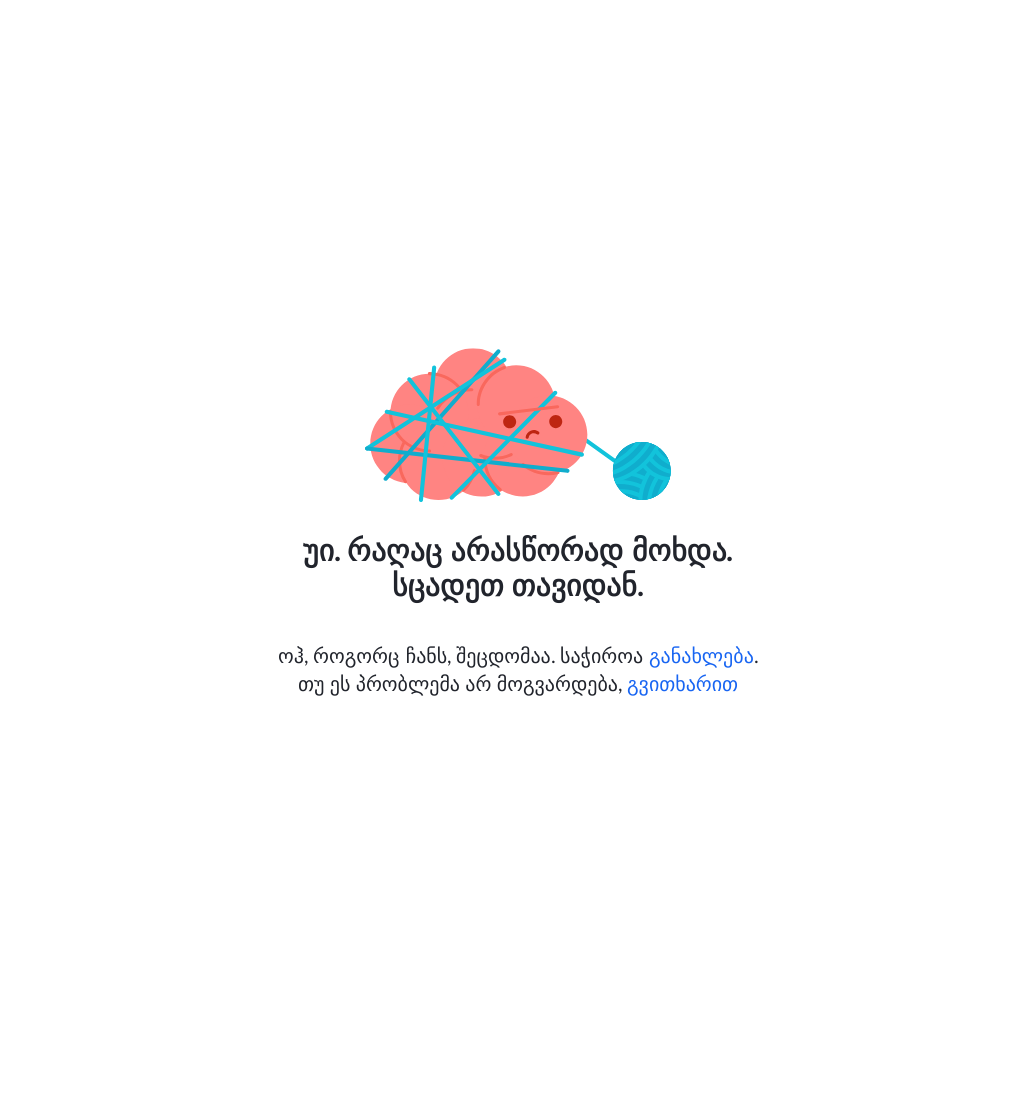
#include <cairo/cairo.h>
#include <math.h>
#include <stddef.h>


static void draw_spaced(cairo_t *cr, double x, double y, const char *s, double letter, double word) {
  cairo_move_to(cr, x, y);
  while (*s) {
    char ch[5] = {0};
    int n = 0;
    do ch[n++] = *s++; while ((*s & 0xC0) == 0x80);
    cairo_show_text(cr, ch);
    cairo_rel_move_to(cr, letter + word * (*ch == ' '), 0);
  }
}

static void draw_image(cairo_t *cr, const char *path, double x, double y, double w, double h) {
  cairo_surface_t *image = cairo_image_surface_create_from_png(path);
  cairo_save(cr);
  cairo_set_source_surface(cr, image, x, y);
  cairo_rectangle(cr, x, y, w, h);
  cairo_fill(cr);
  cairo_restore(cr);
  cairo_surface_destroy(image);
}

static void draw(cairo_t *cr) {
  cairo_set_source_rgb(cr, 1, 1, 1);
  cairo_paint(cr);
  draw_image(cr, "images/1.png", 365, 348, 306, 154);
  cairo_select_font_face(cr, "DejaVu Sans", CAIRO_FONT_SLANT_NORMAL, CAIRO_FONT_WEIGHT_BOLD);
  cairo_set_font_size(cr, 30);
  cairo_set_source_rgb(cr, 33 / 255.0, 36 / 255.0, 44 / 255.0);
  cairo_move_to(cr, 303, 561);
  cairo_show_text(cr, "უი");
  cairo_select_font_face(cr, "Lato", CAIRO_FONT_SLANT_NORMAL, CAIRO_FONT_WEIGHT_BOLD);
  cairo_move_to(cr, 334, 561);
  cairo_show_text(cr, ".");
  cairo_select_font_face(cr, "DejaVu Sans", CAIRO_FONT_SLANT_NORMAL, CAIRO_FONT_WEIGHT_BOLD);
  draw_spaced(cr, 347, 561, "რაღაც არასწორად მოხდა", 0, -1);
  cairo_select_font_face(cr, "Lato", CAIRO_FONT_SLANT_NORMAL, CAIRO_FONT_WEIGHT_BOLD);
  cairo_move_to(cr, 726, 561);
  cairo_show_text(cr, ".");
  cairo_select_font_face(cr, "DejaVu Sans", CAIRO_FONT_SLANT_NORMAL, CAIRO_FONT_WEIGHT_BOLD);
  draw_spaced(cr, 392, 596, "სცადეთ თავიდან", 0, -2);
  cairo_select_font_face(cr, "Lato", CAIRO_FONT_SLANT_NORMAL, CAIRO_FONT_WEIGHT_BOLD);
  cairo_move_to(cr, 637, 596);
  cairo_show_text(cr, ".");
  cairo_select_font_face(cr, "DejaVu Sans", CAIRO_FONT_SLANT_NORMAL, CAIRO_FONT_WEIGHT_NORMAL);
  cairo_set_font_size(cr, 20);
  cairo_move_to(cr, 278, 663);
  cairo_show_text(cr, "ოჰ");
  cairo_select_font_face(cr, "Lato", CAIRO_FONT_SLANT_NORMAL, CAIRO_FONT_WEIGHT_NORMAL);
  cairo_move_to(cr, 304, 663);
  cairo_show_text(cr, ",");
  cairo_select_font_face(cr, "DejaVu Sans", CAIRO_FONT_SLANT_NORMAL, CAIRO_FONT_WEIGHT_NORMAL);
  cairo_move_to(cr, 313, 663);
  cairo_show_text(cr, "როგორც ჩანს");
  cairo_select_font_face(cr, "Lato", CAIRO_FONT_SLANT_NORMAL, CAIRO_FONT_WEIGHT_NORMAL);
  cairo_move_to(cr, 447, 663);
  cairo_show_text(cr, ",");
  cairo_select_font_face(cr, "DejaVu Sans", CAIRO_FONT_SLANT_NORMAL, CAIRO_FONT_WEIGHT_NORMAL);
  cairo_move_to(cr, 456, 663);
  cairo_show_text(cr, "შეცდომაა");
  cairo_select_font_face(cr, "Lato", CAIRO_FONT_SLANT_NORMAL, CAIRO_FONT_WEIGHT_NORMAL);
  cairo_move_to(cr, 551, 663);
  cairo_show_text(cr, ".");
  cairo_select_font_face(cr, "DejaVu Sans", CAIRO_FONT_SLANT_NORMAL, CAIRO_FONT_WEIGHT_NORMAL);
  cairo_move_to(cr, 560, 663);
  cairo_show_text(cr, "საჭიროა");
  cairo_set_source_rgb(cr, 24 / 255.0, 101 / 255.0, 242 / 255.0);
  cairo_move_to(cr, 649, 663);
  cairo_show_text(cr, "განახლება");
  cairo_select_font_face(cr, "Lato", CAIRO_FONT_SLANT_NORMAL, CAIRO_FONT_WEIGHT_NORMAL);
  cairo_set_source_rgb(cr, 33 / 255.0, 36 / 255.0, 44 / 255.0);
  cairo_move_to(cr, 754, 663);
  cairo_show_text(cr, ".");
  cairo_select_font_face(cr, "DejaVu Sans", CAIRO_FONT_SLANT_NORMAL, CAIRO_FONT_WEIGHT_NORMAL);
  draw_spaced(cr, 298, 691, "თუ ეს პრობლემა არ მოგვარდება", 0, -1);
  cairo_select_font_face(cr, "Lato", CAIRO_FONT_SLANT_NORMAL, CAIRO_FONT_WEIGHT_NORMAL);
  cairo_move_to(cr, 618, 691);
  cairo_show_text(cr, ",");
  cairo_select_font_face(cr, "DejaVu Sans", CAIRO_FONT_SLANT_NORMAL, CAIRO_FONT_WEIGHT_NORMAL);
  cairo_set_source_rgb(cr, 24 / 255.0, 101 / 255.0, 242 / 255.0);
  cairo_move_to(cr, 627, 691);
  cairo_show_text(cr, "გვითხარით");
}

int main(void) {
  cairo_surface_t *surface = cairo_image_surface_create(CAIRO_FORMAT_RGB24, 1036, 1118);
  cairo_t *cr = cairo_create(surface);
  cairo_font_options_t *options = cairo_font_options_create();
  cairo_font_options_set_hint_metrics(options, CAIRO_HINT_METRICS_OFF);
  cairo_font_options_set_hint_style(options, CAIRO_HINT_STYLE_NONE);
  cairo_set_font_options(cr, options);
  cairo_set_miter_limit(cr, 4);
  draw(cr);
  cairo_surface_write_to_png(surface, "out.png");
  cairo_font_options_destroy(options);
  cairo_destroy(cr);
  cairo_surface_destroy(surface);
  return 0;
}
